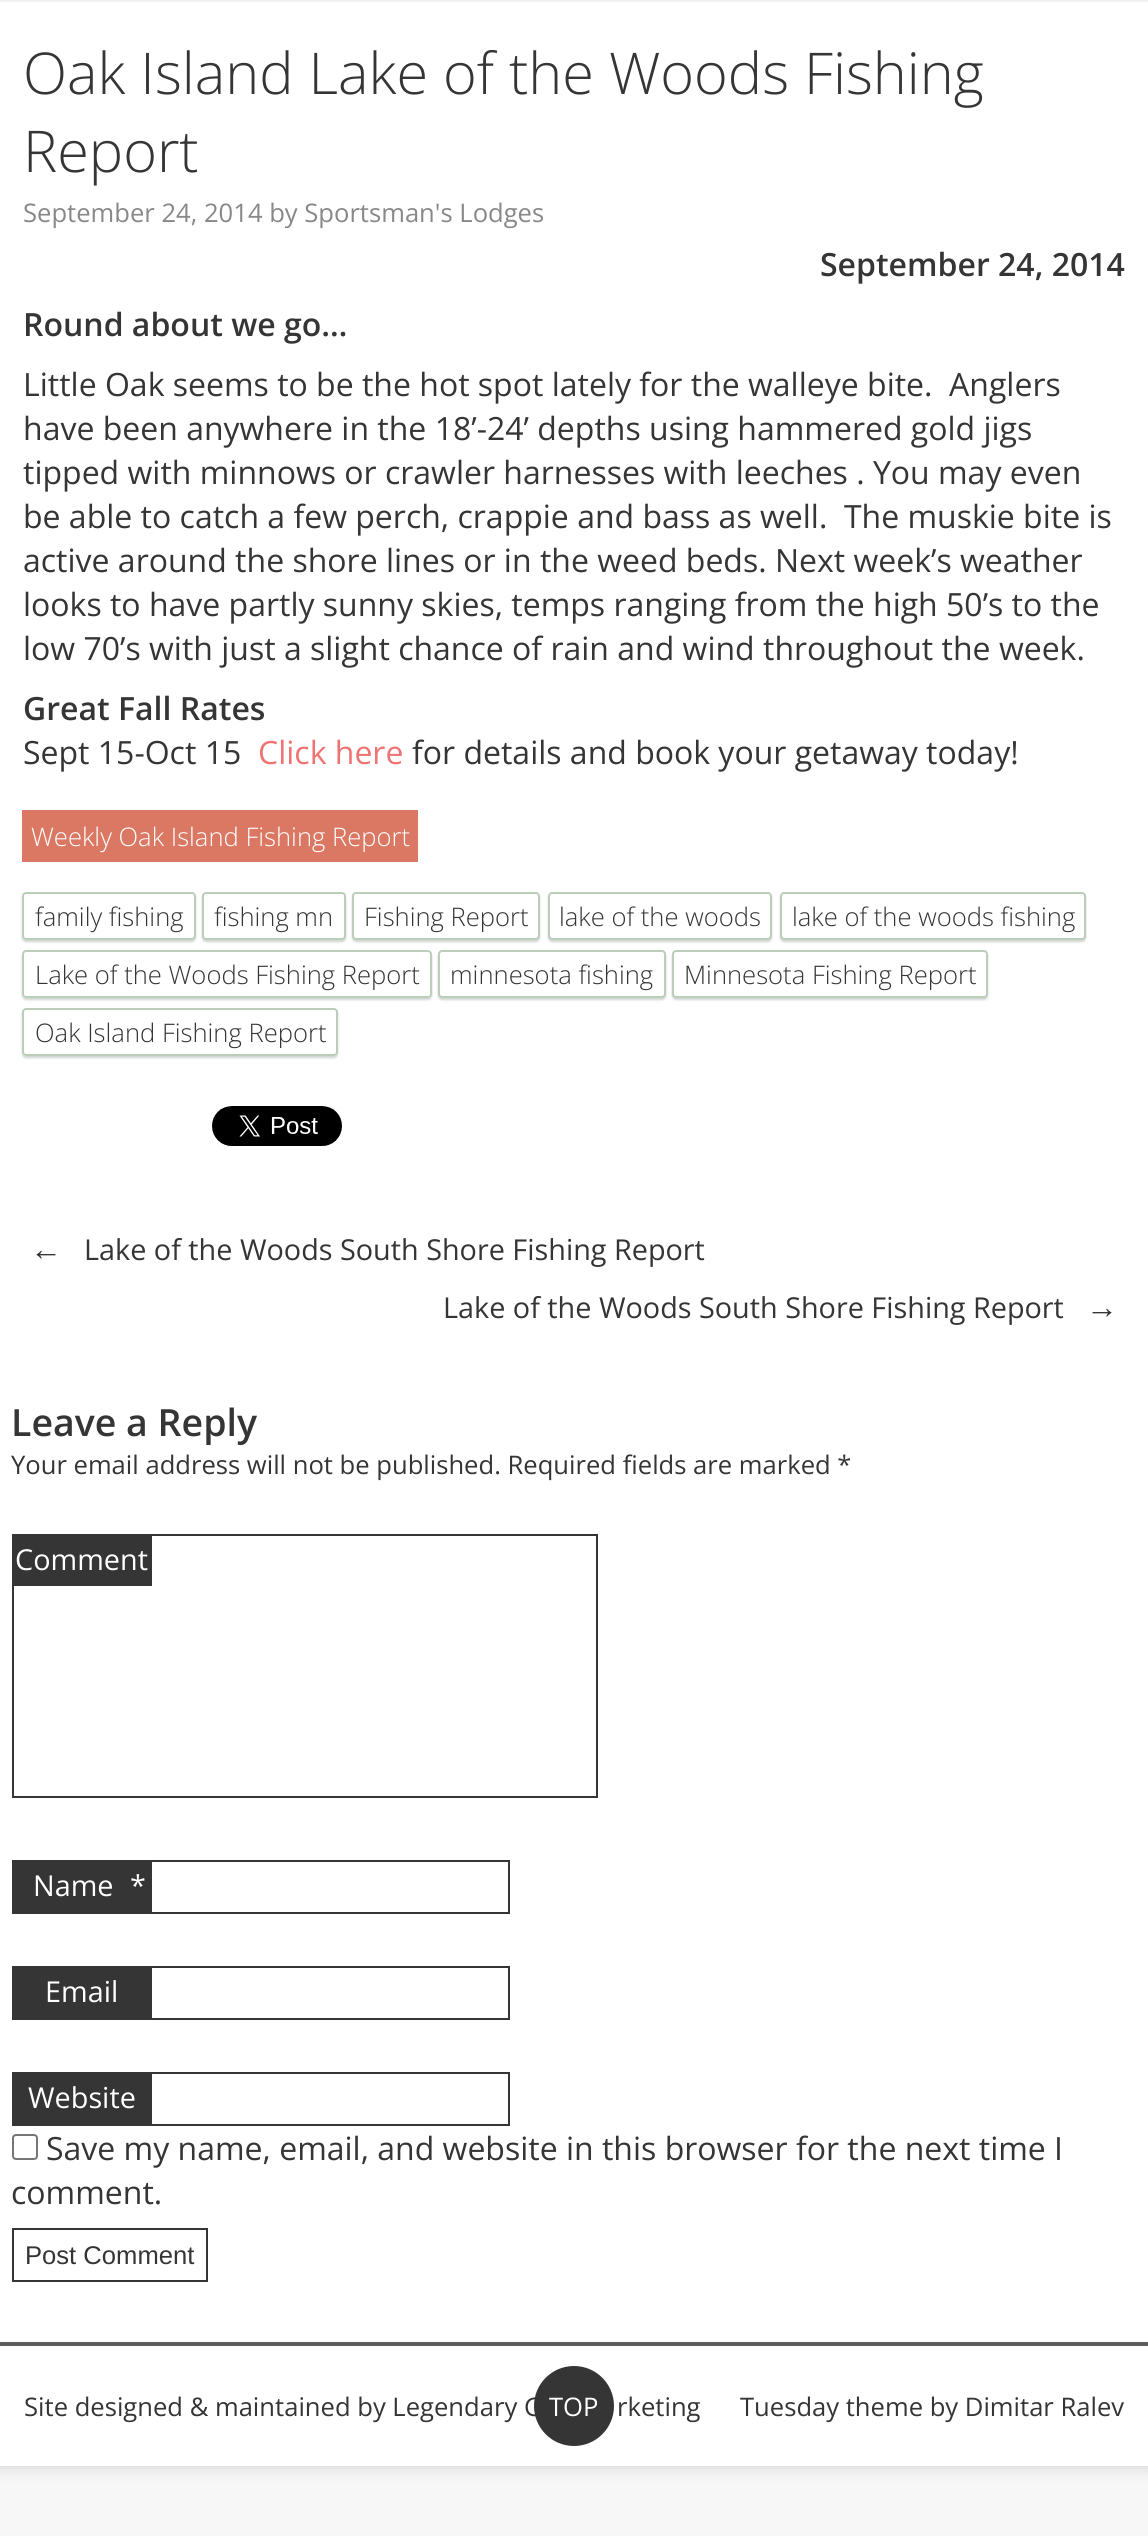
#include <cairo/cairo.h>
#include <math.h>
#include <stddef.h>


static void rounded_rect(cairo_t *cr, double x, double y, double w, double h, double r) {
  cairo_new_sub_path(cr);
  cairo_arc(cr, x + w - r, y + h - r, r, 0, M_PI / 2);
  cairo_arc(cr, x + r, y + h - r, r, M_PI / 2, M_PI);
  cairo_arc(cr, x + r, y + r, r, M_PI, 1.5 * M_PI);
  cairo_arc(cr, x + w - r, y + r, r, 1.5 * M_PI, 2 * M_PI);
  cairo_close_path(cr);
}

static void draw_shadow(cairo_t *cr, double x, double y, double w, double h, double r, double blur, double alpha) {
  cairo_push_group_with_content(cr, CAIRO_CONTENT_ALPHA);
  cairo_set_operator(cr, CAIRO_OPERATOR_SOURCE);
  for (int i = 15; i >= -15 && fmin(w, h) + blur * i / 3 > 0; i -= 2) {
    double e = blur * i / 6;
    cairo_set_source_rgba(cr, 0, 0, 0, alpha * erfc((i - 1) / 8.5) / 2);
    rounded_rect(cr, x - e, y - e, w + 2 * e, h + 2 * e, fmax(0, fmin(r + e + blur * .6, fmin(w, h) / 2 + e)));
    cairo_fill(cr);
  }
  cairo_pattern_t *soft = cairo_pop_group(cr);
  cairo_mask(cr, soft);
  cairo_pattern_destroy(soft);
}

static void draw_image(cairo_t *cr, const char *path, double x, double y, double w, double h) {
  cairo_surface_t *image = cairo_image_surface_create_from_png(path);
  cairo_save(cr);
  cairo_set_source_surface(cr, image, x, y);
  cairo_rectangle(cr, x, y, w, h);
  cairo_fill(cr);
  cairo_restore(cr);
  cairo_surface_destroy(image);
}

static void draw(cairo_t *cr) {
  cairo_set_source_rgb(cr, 247 / 255.0, 247 / 255.0, 247 / 255.0);
  cairo_paint(cr);
  cairo_set_source_rgb(cr, 179 / 255.0, 179 / 255.0, 179 / 255.0);
  draw_shadow(cr, -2, -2, 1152, 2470, 0, 7, 0.5);
  cairo_set_source_rgb(cr, 1, 1, 1);
  cairo_rectangle(cr, 0, 2, 1148, 2464);
  cairo_fill(cr);
  cairo_set_source_rgb(cr, 241 / 255.0, 241 / 255.0, 241 / 255.0);
  cairo_rectangle(cr, 0, 0, 1148, 2);
  cairo_fill(cr);
  cairo_set_source_rgb(cr, 219 / 255.0, 120 / 255.0, 99 / 255.0);
  cairo_rectangle(cr, 22, 810, 396, 52);
  cairo_fill(cr);
  cairo_save(cr);
  cairo_set_fill_rule(cr, CAIRO_FILL_RULE_EVEN_ODD);
  cairo_new_path(cr);
  cairo_move_to(cr, 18, 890);
  cairo_line_to(cr, 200, 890);
  cairo_line_to(cr, 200, 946);
  cairo_line_to(cr, 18, 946);
  cairo_close_path(cr);
  cairo_move_to(cr, 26, 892);
  cairo_line_to(cr, 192, 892);
  cairo_curve_to(cr, 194, 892, 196, 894, 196, 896);
  cairo_line_to(cr, 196, 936);
  cairo_curve_to(cr, 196, 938, 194, 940, 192, 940);
  cairo_line_to(cr, 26, 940);
  cairo_curve_to(cr, 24, 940, 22, 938, 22, 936);
  cairo_line_to(cr, 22, 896);
  cairo_curve_to(cr, 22, 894, 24, 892, 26, 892);
  cairo_close_path(cr);
  cairo_clip(cr);
  cairo_set_source_rgb(cr, 209 / 255.0, 214 / 255.0, 209 / 255.0);
  draw_shadow(cr, 22, 894, 174, 48, 4, 1, 1);
  cairo_restore(cr);
  cairo_set_source_rgb(cr, 1, 1, 1);
  rounded_rect(cr, 23, 893, 172, 46, 3);
  cairo_fill_preserve(cr);
  cairo_set_source_rgb(cr, 187 / 255.0, 206 / 255.0, 187 / 255.0);
  cairo_stroke(cr);
  cairo_set_source_rgb(cr, 209 / 255.0, 214 / 255.0, 209 / 255.0);
  draw_shadow(cr, 202, 894, 144, 48, 4, 1, 1);
  cairo_set_source_rgb(cr, 1, 1, 1);
  rounded_rect(cr, 203, 893, 142, 46, 3);
  cairo_fill_preserve(cr);
  cairo_set_source_rgb(cr, 187 / 255.0, 206 / 255.0, 187 / 255.0);
  cairo_stroke(cr);
  cairo_set_source_rgb(cr, 209 / 255.0, 214 / 255.0, 209 / 255.0);
  draw_shadow(cr, 352, 894, 188, 48, 4, 1, 1);
  cairo_set_source_rgb(cr, 1, 1, 1);
  rounded_rect(cr, 353, 893, 186, 46, 3);
  cairo_fill_preserve(cr);
  cairo_set_source_rgb(cr, 187 / 255.0, 206 / 255.0, 187 / 255.0);
  cairo_stroke(cr);
  cairo_set_source_rgb(cr, 209 / 255.0, 214 / 255.0, 209 / 255.0);
  draw_shadow(cr, 548, 894, 224, 48, 4, 1, 1);
  cairo_set_source_rgb(cr, 1, 1, 1);
  rounded_rect(cr, 549, 893, 222, 46, 3);
  cairo_fill_preserve(cr);
  cairo_set_source_rgb(cr, 187 / 255.0, 206 / 255.0, 187 / 255.0);
  cairo_stroke(cr);
  cairo_set_source_rgb(cr, 209 / 255.0, 214 / 255.0, 209 / 255.0);
  draw_shadow(cr, 780, 894, 306, 48, 4, 1, 1);
  cairo_set_source_rgb(cr, 1, 1, 1);
  rounded_rect(cr, 781, 893, 304, 46, 3);
  cairo_fill_preserve(cr);
  cairo_set_source_rgb(cr, 187 / 255.0, 206 / 255.0, 187 / 255.0);
  cairo_stroke(cr);
  cairo_save(cr);
  cairo_set_fill_rule(cr, CAIRO_FILL_RULE_EVEN_ODD);
  cairo_new_path(cr);
  cairo_move_to(cr, 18, 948);
  cairo_line_to(cr, 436, 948);
  cairo_line_to(cr, 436, 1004);
  cairo_line_to(cr, 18, 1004);
  cairo_close_path(cr);
  cairo_move_to(cr, 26, 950);
  cairo_line_to(cr, 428, 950);
  cairo_curve_to(cr, 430, 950, 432, 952, 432, 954);
  cairo_line_to(cr, 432, 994);
  cairo_curve_to(cr, 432, 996, 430, 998, 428, 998);
  cairo_line_to(cr, 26, 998);
  cairo_curve_to(cr, 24, 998, 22, 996, 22, 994);
  cairo_line_to(cr, 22, 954);
  cairo_curve_to(cr, 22, 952, 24, 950, 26, 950);
  cairo_close_path(cr);
  cairo_clip(cr);
  cairo_set_source_rgb(cr, 209 / 255.0, 214 / 255.0, 209 / 255.0);
  draw_shadow(cr, 22, 952, 410, 48, 4, 1, 1);
  cairo_restore(cr);
  cairo_set_source_rgb(cr, 1, 1, 1);
  rounded_rect(cr, 23, 951, 408, 46, 3);
  cairo_fill_preserve(cr);
  cairo_set_source_rgb(cr, 187 / 255.0, 206 / 255.0, 187 / 255.0);
  cairo_stroke(cr);
  cairo_set_source_rgb(cr, 209 / 255.0, 214 / 255.0, 209 / 255.0);
  draw_shadow(cr, 438, 952, 228, 48, 4, 1, 1);
  cairo_set_source_rgb(cr, 1, 1, 1);
  rounded_rect(cr, 439, 951, 226, 46, 3);
  cairo_fill_preserve(cr);
  cairo_set_source_rgb(cr, 187 / 255.0, 206 / 255.0, 187 / 255.0);
  cairo_stroke(cr);
  cairo_set_source_rgb(cr, 209 / 255.0, 214 / 255.0, 209 / 255.0);
  draw_shadow(cr, 672, 952, 316, 48, 4, 1, 1);
  cairo_set_source_rgb(cr, 1, 1, 1);
  rounded_rect(cr, 673, 951, 314, 46, 3);
  cairo_fill_preserve(cr);
  cairo_set_source_rgb(cr, 187 / 255.0, 206 / 255.0, 187 / 255.0);
  cairo_stroke(cr);
  cairo_save(cr);
  cairo_set_fill_rule(cr, CAIRO_FILL_RULE_EVEN_ODD);
  cairo_new_path(cr);
  cairo_move_to(cr, 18, 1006);
  cairo_line_to(cr, 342, 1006);
  cairo_line_to(cr, 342, 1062);
  cairo_line_to(cr, 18, 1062);
  cairo_close_path(cr);
  cairo_move_to(cr, 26, 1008);
  cairo_line_to(cr, 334, 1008);
  cairo_curve_to(cr, 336, 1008, 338, 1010, 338, 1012);
  cairo_line_to(cr, 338, 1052);
  cairo_curve_to(cr, 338, 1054, 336, 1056, 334, 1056);
  cairo_line_to(cr, 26, 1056);
  cairo_curve_to(cr, 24, 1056, 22, 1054, 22, 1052);
  cairo_line_to(cr, 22, 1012);
  cairo_curve_to(cr, 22, 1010, 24, 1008, 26, 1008);
  cairo_close_path(cr);
  cairo_clip(cr);
  cairo_set_source_rgb(cr, 209 / 255.0, 214 / 255.0, 209 / 255.0);
  draw_shadow(cr, 22, 1010, 316, 48, 4, 1, 1);
  cairo_restore(cr);
  cairo_set_source_rgb(cr, 1, 1, 1);
  rounded_rect(cr, 23, 1009, 314, 46, 3);
  cairo_fill_preserve(cr);
  cairo_set_source_rgb(cr, 187 / 255.0, 206 / 255.0, 187 / 255.0);
  cairo_stroke(cr);
  draw_image(cr, "images/1.png", 212, 1106, 130, 40);
  cairo_rectangle(cr, 13, 1535, 584, 262);
  cairo_set_source_rgb(cr, 52 / 255.0, 53 / 255.0, 52 / 255.0);
  cairo_stroke(cr);
  cairo_rectangle(cr, 14, 1536, 138, 50);
  cairo_fill(cr);
  cairo_rectangle(cr, 13, 1861, 496, 52);
  cairo_stroke(cr);
  cairo_rectangle(cr, 14, 1862, 138, 50);
  cairo_fill(cr);
  cairo_rectangle(cr, 13, 1967, 496, 52);
  cairo_stroke(cr);
  cairo_rectangle(cr, 14, 1968, 138, 50);
  cairo_fill(cr);
  cairo_rectangle(cr, 13, 2073, 496, 52);
  cairo_stroke(cr);
  cairo_rectangle(cr, 14, 2074, 138, 50);
  cairo_fill(cr);
  rounded_rect(cr, 13, 2135, 24, 24, 3);
  cairo_set_source_rgb(cr, 118 / 255.0, 118 / 255.0, 118 / 255.0);
  cairo_stroke(cr);
  cairo_rectangle(cr, 13, 2229, 194, 52);
  cairo_set_source_rgb(cr, 52 / 255.0, 53 / 255.0, 52 / 255.0);
  cairo_stroke(cr);
  cairo_set_source_rgb(cr, 93 / 255.0, 93 / 255.0, 93 / 255.0);
  cairo_rectangle(cr, 0, 2342, 1148, 4);
  cairo_fill(cr);
  cairo_set_source_rgb(cr, 52 / 255.0, 53 / 255.0, 52 / 255.0);
  cairo_arc(cr, 574, 2406, 40, 0, 2 * M_PI);
  cairo_fill(cr);
  cairo_select_font_face(cr, "Open Sans Light", CAIRO_FONT_SLANT_NORMAL, CAIRO_FONT_WEIGHT_NORMAL);
  cairo_set_font_size(cr, 57.6);
  cairo_move_to(cr, 23, 94);
  cairo_show_text(cr, "Oak Island Lake of the Woods Fishing");
  cairo_move_to(cr, 23, 172);
  cairo_show_text(cr, "Report");
  cairo_select_font_face(cr, "Open Sans", CAIRO_FONT_SLANT_NORMAL, CAIRO_FONT_WEIGHT_NORMAL);
  cairo_set_font_size(cr, 25.6);
  cairo_set_source_rgb(cr, 136 / 255.0, 136 / 255.0, 136 / 255.0);
  cairo_move_to(cr, 23, 222);
  cairo_show_text(cr, "September 24, 2014 by Sportsman's Lodges");
  cairo_select_font_face(cr, "Open Sans SemiBold", CAIRO_FONT_SLANT_NORMAL, CAIRO_FONT_WEIGHT_NORMAL);
  cairo_set_font_size(cr, 32);
  cairo_set_source_rgb(cr, 52 / 255.0, 53 / 255.0, 52 / 255.0);
  cairo_move_to(cr, 820, 276);
  cairo_show_text(cr, "September 24, 2014");
  cairo_move_to(cr, 23, 336);
  cairo_show_text(cr, "Round about we go…");
  cairo_select_font_face(cr, "Open Sans", CAIRO_FONT_SLANT_NORMAL, CAIRO_FONT_WEIGHT_NORMAL);
  cairo_move_to(cr, 23, 396);
  cairo_show_text(cr, "Little Oak seems to be the hot spot lately for the walleye bite.  Anglers");
  cairo_move_to(cr, 23, 440);
  cairo_show_text(cr, "have been anywhere in the 18’-24’ depths using hammered gold jigs");
  cairo_move_to(cr, 23, 484);
  cairo_show_text(cr, "tipped with minnows or crawler harnesses with leeches . You may even");
  cairo_move_to(cr, 23, 528);
  cairo_show_text(cr, "be able to catch a few perch, crappie and bass as well.  The muskie bite is");
  cairo_move_to(cr, 23, 572);
  cairo_show_text(cr, "active around the shore lines or in the weed beds. Next week’s weather");
  cairo_move_to(cr, 23, 616);
  cairo_show_text(cr, "looks to have partly sunny skies, temps ranging from the high 50’s to the");
  cairo_move_to(cr, 23, 660);
  cairo_show_text(cr, "low 70’s with just a slight chance of rain and wind throughout the week.");
  cairo_select_font_face(cr, "Open Sans SemiBold", CAIRO_FONT_SLANT_NORMAL, CAIRO_FONT_WEIGHT_NORMAL);
  cairo_move_to(cr, 23, 720);
  cairo_show_text(cr, "Great Fall Rates");
  cairo_select_font_face(cr, "Open Sans", CAIRO_FONT_SLANT_NORMAL, CAIRO_FONT_WEIGHT_NORMAL);
  cairo_move_to(cr, 23, 764);
  cairo_show_text(cr, "Sept 15-Oct 15");
  cairo_set_source_rgb(cr, 240 / 255.0, 115 / 255.0, 115 / 255.0);
  cairo_move_to(cr, 258, 764);
  cairo_show_text(cr, "Click here");
  cairo_set_source_rgb(cr, 52 / 255.0, 53 / 255.0, 52 / 255.0);
  cairo_move_to(cr, 412, 764);
  cairo_show_text(cr, "for details and book your getaway today!");
  cairo_select_font_face(cr, "Open Sans Light", CAIRO_FONT_SLANT_NORMAL, CAIRO_FONT_WEIGHT_NORMAL);
  cairo_set_font_size(cr, 25.6);
  cairo_set_source_rgb(cr, 1, 1, 1);
  cairo_move_to(cr, 31, 846);
  cairo_show_text(cr, "Weekly Oak Island Fishing Report");
  cairo_set_source_rgb(cr, 52 / 255.0, 53 / 255.0, 52 / 255.0);
  cairo_move_to(cr, 35, 926);
  cairo_show_text(cr, "family fishing");
  cairo_move_to(cr, 214, 926);
  cairo_show_text(cr, "fishing mn");
  cairo_move_to(cr, 364, 926);
  cairo_show_text(cr, "Fishing Report");
  cairo_move_to(cr, 559, 926);
  cairo_show_text(cr, "lake of the woods");
  cairo_move_to(cr, 792, 926);
  cairo_show_text(cr, "lake of the woods fishing");
  cairo_move_to(cr, 35, 984);
  cairo_show_text(cr, "Lake of the Woods Fishing Report");
  cairo_move_to(cr, 450, 984);
  cairo_show_text(cr, "minnesota fishing");
  cairo_move_to(cr, 684, 984);
  cairo_show_text(cr, "Minnesota Fishing Report");
  cairo_move_to(cr, 35, 1042);
  cairo_show_text(cr, "Oak Island Fishing Report");
  cairo_select_font_face(cr, "Liberation Sans", CAIRO_FONT_SLANT_NORMAL, CAIRO_FONT_WEIGHT_NORMAL);
  cairo_set_font_size(cr, 32);
  cairo_move_to(cr, 30, 1260);
  cairo_show_text(cr, "←");
  cairo_select_font_face(cr, "Open Sans", CAIRO_FONT_SLANT_NORMAL, CAIRO_FONT_WEIGHT_NORMAL);
  cairo_set_font_size(cr, 28.8);
  cairo_move_to(cr, 84, 1260);
  cairo_show_text(cr, "Lake of the Woods South Shore Fishing Report");
  cairo_move_to(cr, 443, 1318);
  cairo_show_text(cr, "Lake of the Woods South Shore Fishing Report");
  cairo_select_font_face(cr, "Liberation Sans", CAIRO_FONT_SLANT_NORMAL, CAIRO_FONT_WEIGHT_NORMAL);
  cairo_set_font_size(cr, 32);
  cairo_move_to(cr, 1086, 1318);
  cairo_show_text(cr, "→");
  cairo_select_font_face(cr, "Open Sans SemiBold", CAIRO_FONT_SLANT_NORMAL, CAIRO_FONT_WEIGHT_NORMAL);
  cairo_set_font_size(cr, 37.5);
  cairo_move_to(cr, 11, 1436);
  cairo_show_text(cr, "Leave a Reply");
  cairo_select_font_face(cr, "Open Sans", CAIRO_FONT_SLANT_NORMAL, CAIRO_FONT_WEIGHT_NORMAL);
  cairo_set_font_size(cr, 25.6);
  cairo_move_to(cr, 11, 1474);
  cairo_show_text(cr, "Your email address will not be published. Required fields are marked *");
  cairo_set_font_size(cr, 28.8);
  cairo_set_source_rgb(cr, 1, 1, 1);
  cairo_move_to(cr, 15, 1570);
  cairo_show_text(cr, "Comment");
  cairo_move_to(cr, 33, 1896);
  cairo_show_text(cr, "Name");
  cairo_move_to(cr, 130, 1896);
  cairo_show_text(cr, "*");
  cairo_move_to(cr, 45, 2002);
  cairo_show_text(cr, "Email");
  cairo_move_to(cr, 28, 2108);
  cairo_show_text(cr, "Website");
  cairo_set_font_size(cr, 32);
  cairo_set_source_rgb(cr, 52 / 255.0, 53 / 255.0, 52 / 255.0);
  cairo_move_to(cr, 46, 2160);
  cairo_show_text(cr, "Save my name, email, and website in this browser for the next time I");
  cairo_move_to(cr, 11, 2204);
  cairo_show_text(cr, "comment.");
  cairo_select_font_face(cr, "Liberation Sans", CAIRO_FONT_SLANT_NORMAL, CAIRO_FONT_WEIGHT_NORMAL);
  cairo_set_font_size(cr, 25.6);
  cairo_move_to(cr, 25, 2264);
  cairo_show_text(cr, "Post Comment");
  cairo_select_font_face(cr, "Open Sans", CAIRO_FONT_SLANT_NORMAL, CAIRO_FONT_WEIGHT_NORMAL);
  cairo_move_to(cr, 24, 2416);
  cairo_show_text(cr, "Site designed & maintained by Legendary G");
  cairo_move_to(cr, 617, 2416);
  cairo_show_text(cr, "rketing");
  cairo_move_to(cr, 740, 2416);
  cairo_show_text(cr, "Tuesday theme by Dimitar Ralev");
  cairo_set_source_rgb(cr, 1, 1, 1);
  cairo_move_to(cr, 549, 2416);
  cairo_show_text(cr, "TOP");
}

int main(void) {
  cairo_surface_t *surface = cairo_image_surface_create(CAIRO_FORMAT_RGB24, 1148, 2536);
  cairo_t *cr = cairo_create(surface);
  cairo_font_options_t *options = cairo_font_options_create();
  cairo_font_options_set_hint_metrics(options, CAIRO_HINT_METRICS_OFF);
  cairo_font_options_set_hint_style(options, CAIRO_HINT_STYLE_NONE);
  cairo_set_font_options(cr, options);
  cairo_set_miter_limit(cr, 4);
  draw(cr);
  cairo_surface_write_to_png(surface, "out.png");
  cairo_font_options_destroy(options);
  cairo_destroy(cr);
  cairo_surface_destroy(surface);
  return 0;
}
